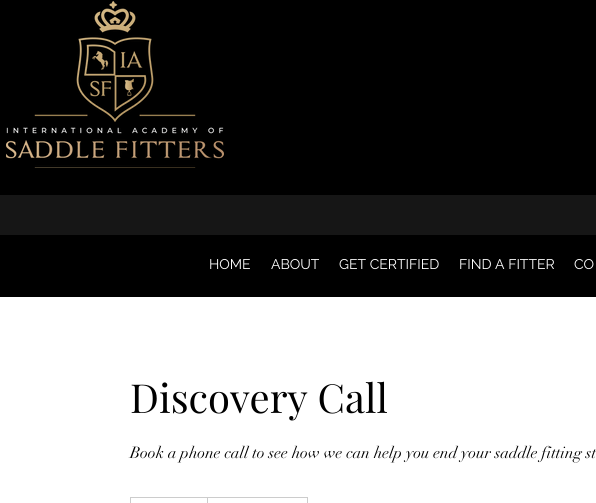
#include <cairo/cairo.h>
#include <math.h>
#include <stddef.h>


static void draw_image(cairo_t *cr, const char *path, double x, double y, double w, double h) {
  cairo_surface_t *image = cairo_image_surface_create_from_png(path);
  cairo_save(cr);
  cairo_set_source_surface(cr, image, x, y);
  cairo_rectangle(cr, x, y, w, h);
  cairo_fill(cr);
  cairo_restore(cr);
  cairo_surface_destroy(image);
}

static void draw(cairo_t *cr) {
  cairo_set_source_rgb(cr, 0, 0, 0);
  cairo_paint(cr);
  draw_image(cr, "images/1.png", 6, 1, 218, 167);
  cairo_set_source_rgb(cr, 22 / 255.0, 22 / 255.0, 22 / 255.0);
  cairo_rectangle(cr, 0, 195, 596, 40);
  cairo_fill(cr);
  cairo_set_source_rgb(cr, 1, 1, 1);
  cairo_rectangle(cr, 0, 297, 596, 206);
  cairo_fill(cr);
  cairo_rectangle(cr, 130.5, 497.5, 177, 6);
  cairo_set_source_rgb(cr, 204 / 255.0, 204 / 255.0, 204 / 255.0);
  cairo_set_line_width(cr, 1);
  cairo_stroke(cr);
  cairo_new_path(cr);
  cairo_move_to(cr, 207, 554);
  cairo_line_to(cr, 207, 497);
  cairo_line_to(cr, 208, 498);
  cairo_line_to(cr, 208, 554);
  cairo_close_path(cr);
  cairo_fill(cr);
  cairo_select_font_face(cr, "Raleway", CAIRO_FONT_SLANT_NORMAL, CAIRO_FONT_WEIGHT_NORMAL);
  cairo_set_font_size(cr, 14);
  cairo_set_source_rgb(cr, 1, 1, 1);
  cairo_move_to(cr, 209, 269);
  cairo_show_text(cr, "HOME");
  cairo_move_to(cr, 271, 269);
  cairo_show_text(cr, "ABOUT");
  cairo_move_to(cr, 339, 269);
  cairo_show_text(cr, "GET CERTIFIED");
  cairo_move_to(cr, 459, 269);
  cairo_show_text(cr, "FIND A FITTER");
  cairo_move_to(cr, 574, 269);
  cairo_show_text(cr, "CO");
  cairo_select_font_face(cr, "Playfair Display", CAIRO_FONT_SLANT_NORMAL, CAIRO_FONT_WEIGHT_NORMAL);
  cairo_set_font_size(cr, 40);
  cairo_set_source_rgb(cr, 0, 0, 0);
  cairo_move_to(cr, 130, 413);
  cairo_show_text(cr, "Discovery Call");
  cairo_select_font_face(cr, "didot", CAIRO_FONT_SLANT_NORMAL, CAIRO_FONT_WEIGHT_NORMAL);
  cairo_set_font_size(cr, 16);
  cairo_move_to(cr, 130, 458);
  cairo_show_text(cr, "Book a phone call to see how we can help you end your saddle fitting st");
}

int main(void) {
  cairo_surface_t *surface = cairo_image_surface_create(CAIRO_FORMAT_RGB24, 596, 503);
  cairo_t *cr = cairo_create(surface);
  cairo_font_options_t *options = cairo_font_options_create();
  cairo_font_options_set_hint_metrics(options, CAIRO_HINT_METRICS_OFF);
  cairo_font_options_set_hint_style(options, CAIRO_HINT_STYLE_NONE);
  cairo_set_font_options(cr, options);
  cairo_set_miter_limit(cr, 4);
  draw(cr);
  cairo_surface_write_to_png(surface, "out.png");
  cairo_font_options_destroy(options);
  cairo_destroy(cr);
  cairo_surface_destroy(surface);
  return 0;
}
